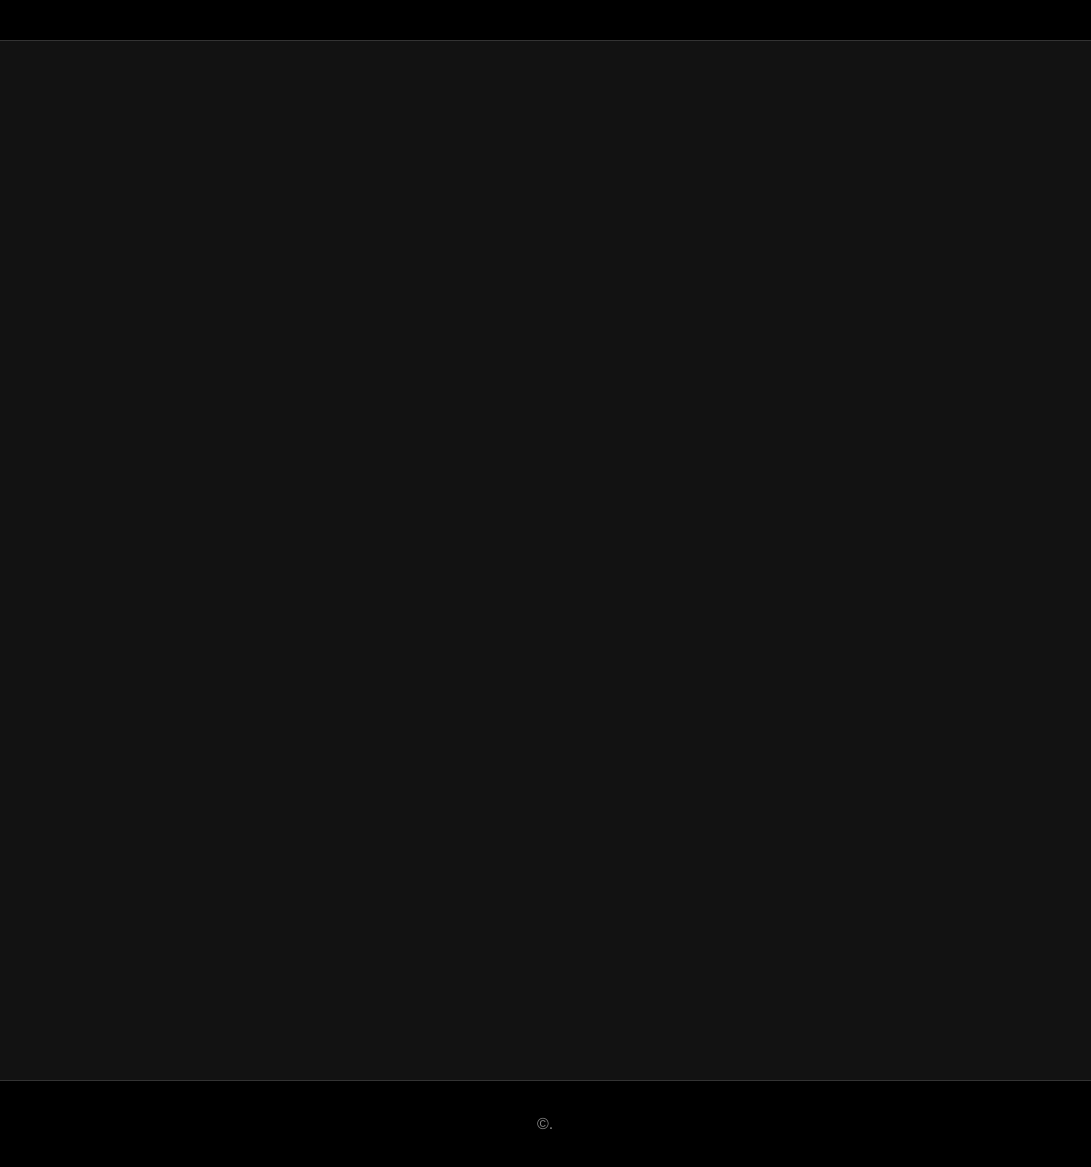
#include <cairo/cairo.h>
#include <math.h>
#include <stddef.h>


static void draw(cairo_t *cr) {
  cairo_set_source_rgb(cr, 18 / 255.0, 18 / 255.0, 18 / 255.0);
  cairo_paint(cr);
  cairo_set_source_rgb(cr, 0, 0, 0);
  cairo_rectangle(cr, 0, 0, 1091, 40);
  cairo_fill(cr);
  cairo_set_source_rgb(cr, 51 / 255.0, 51 / 255.0, 51 / 255.0);
  cairo_rectangle(cr, 0, 40, 1091, 1);
  cairo_fill(cr);
  cairo_set_source_rgb(cr, 0, 0, 0);
  cairo_rectangle(cr, 0, 1081, 1091, 86);
  cairo_fill(cr);
  cairo_set_source_rgb(cr, 51 / 255.0, 51 / 255.0, 51 / 255.0);
  cairo_rectangle(cr, 0, 1080, 1091, 1);
  cairo_fill(cr);
  cairo_select_font_face(cr, "Liberation Sans", CAIRO_FONT_SLANT_NORMAL, CAIRO_FONT_WEIGHT_NORMAL);
  cairo_set_font_size(cr, 16);
  cairo_set_source_rgb(cr, 136 / 255.0, 136 / 255.0, 136 / 255.0);
  cairo_move_to(cr, 537, 1129);
  cairo_show_text(cr, "©.");
}

int main(void) {
  cairo_surface_t *surface = cairo_image_surface_create(CAIRO_FORMAT_RGB24, 1091, 1167);
  cairo_t *cr = cairo_create(surface);
  cairo_font_options_t *options = cairo_font_options_create();
  cairo_font_options_set_hint_metrics(options, CAIRO_HINT_METRICS_OFF);
  cairo_font_options_set_hint_style(options, CAIRO_HINT_STYLE_NONE);
  cairo_set_font_options(cr, options);
  cairo_set_miter_limit(cr, 4);
  draw(cr);
  cairo_surface_write_to_png(surface, "out.png");
  cairo_font_options_destroy(options);
  cairo_destroy(cr);
  cairo_surface_destroy(surface);
  return 0;
}
